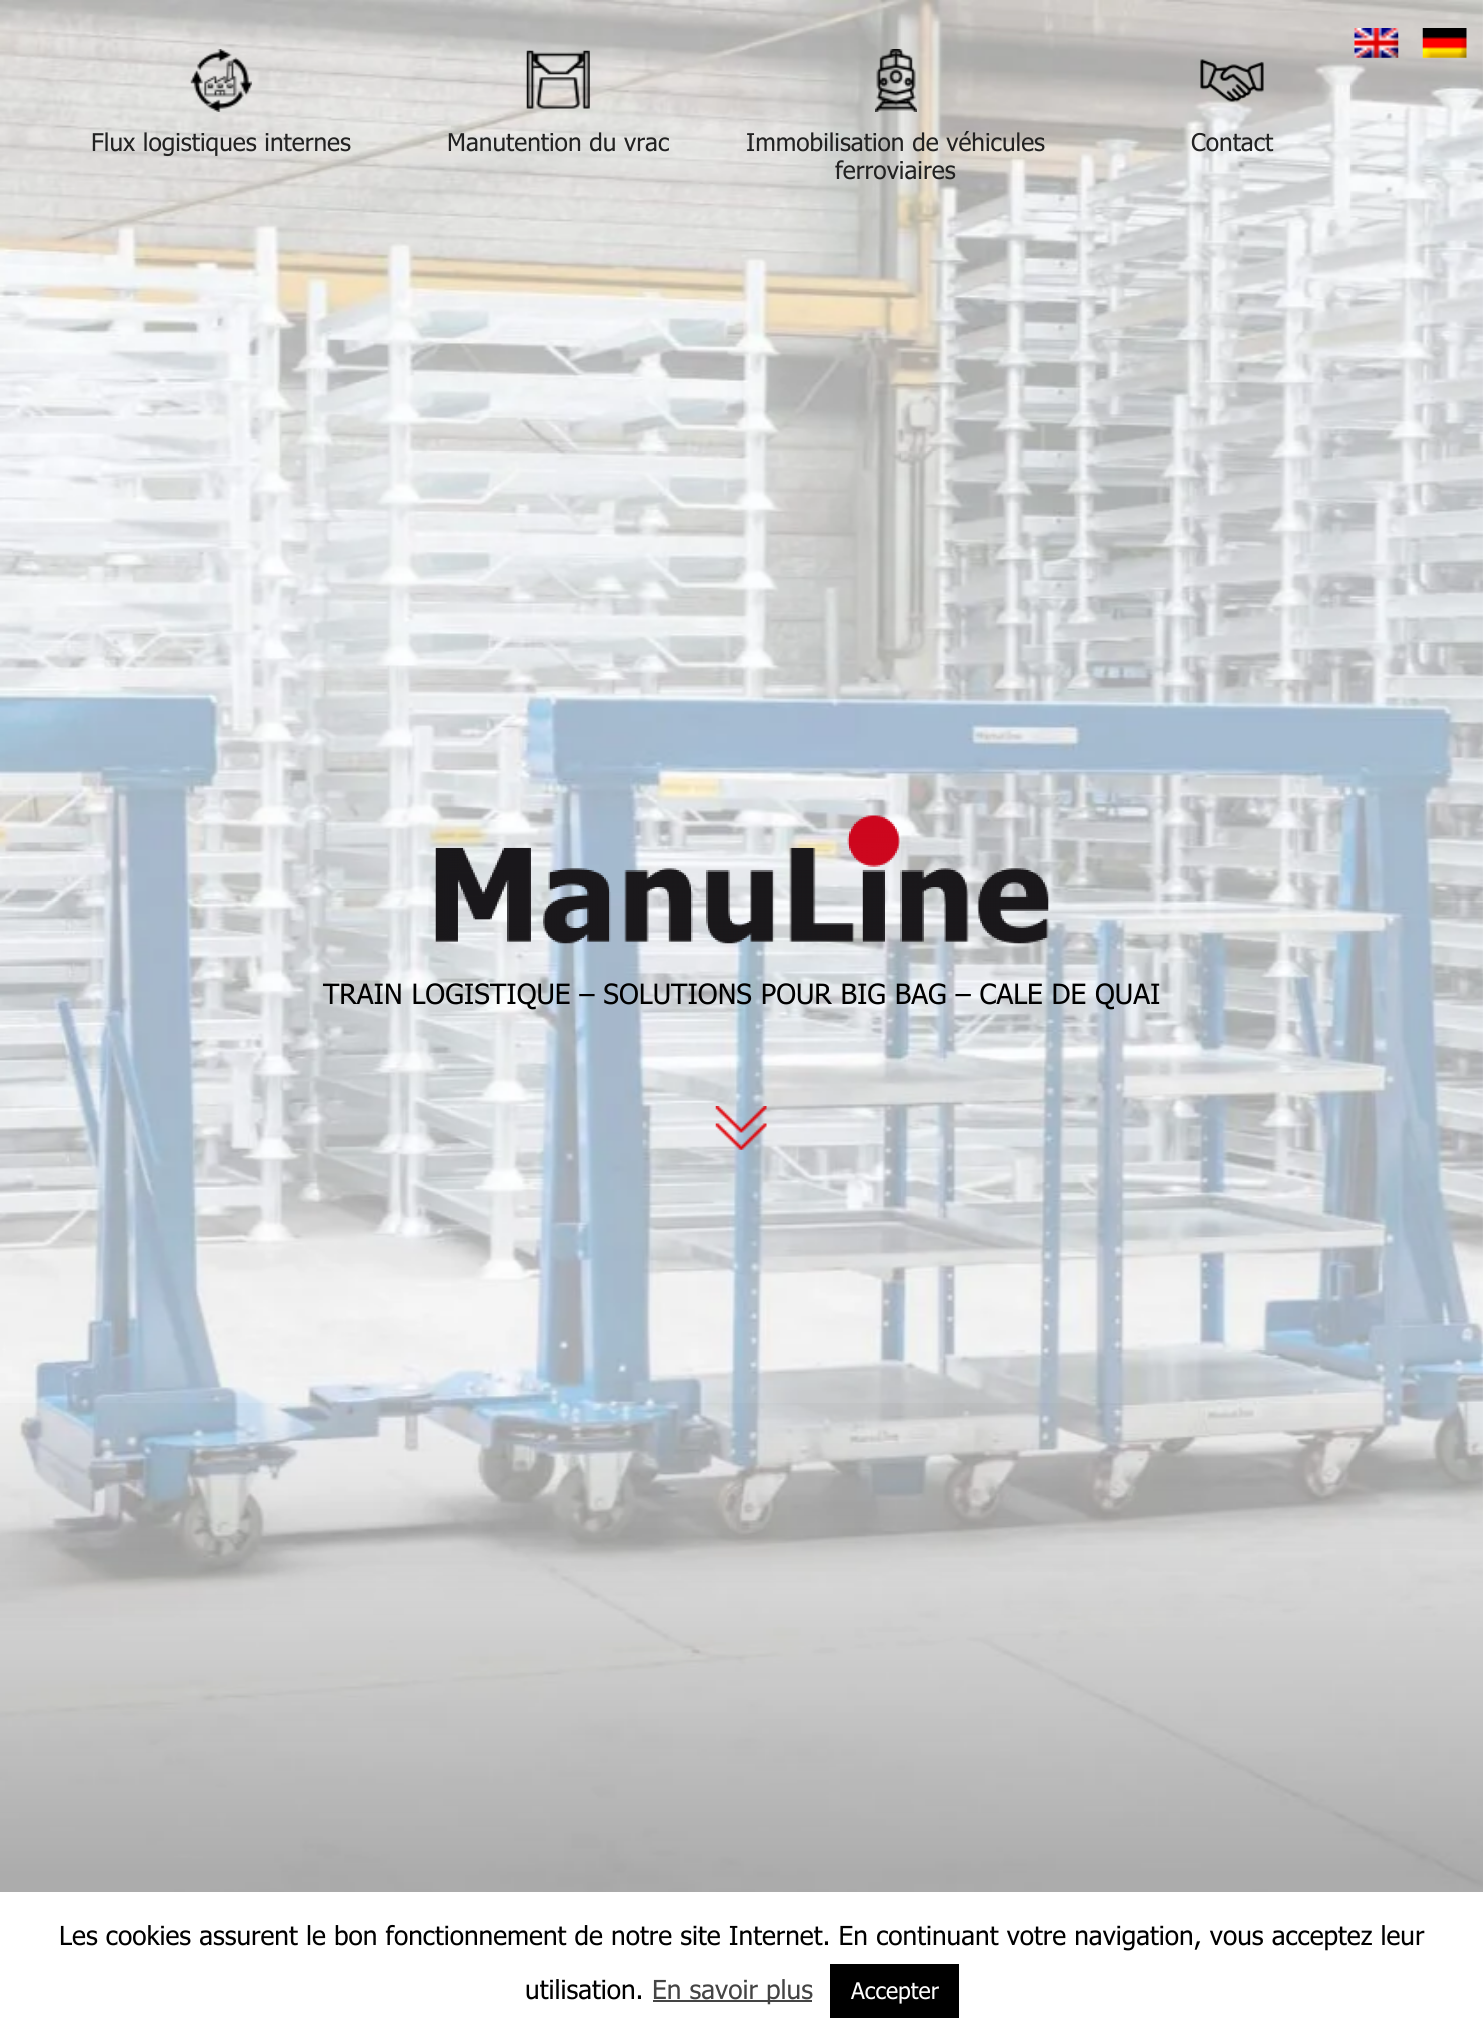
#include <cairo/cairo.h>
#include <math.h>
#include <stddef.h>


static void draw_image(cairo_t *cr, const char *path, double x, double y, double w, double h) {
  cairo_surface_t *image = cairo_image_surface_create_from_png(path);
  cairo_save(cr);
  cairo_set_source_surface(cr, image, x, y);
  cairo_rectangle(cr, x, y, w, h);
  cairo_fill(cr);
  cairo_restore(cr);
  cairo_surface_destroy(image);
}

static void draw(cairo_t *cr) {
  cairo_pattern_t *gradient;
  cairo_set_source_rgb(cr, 1, 1, 1);
  cairo_paint(cr);
  draw_image(cr, "images/7.png", 0, 0, 1483, 1892);
  draw_image(cr, "images/1.png", 1354, 28, 45, 30);
  draw_image(cr, "images/2.png", 1422, 28, 45, 30);
  draw_image(cr, "images/3.png", 190, 49, 62, 63);
  draw_image(cr, "images/4.png", 526, 50, 64, 59);
  draw_image(cr, "images/5.png", 875, 49, 42, 63);
  draw_image(cr, "images/6.png", 1200, 59, 64, 43);
  gradient = cairo_pattern_create_linear(742, 1367, 742, 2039);
  cairo_pattern_add_color_stop_rgba(gradient, 0, 0, 0, 0, 0);
  cairo_pattern_add_color_stop_rgba(gradient, 0.75, 0, 0, 0, 0.3);
  cairo_pattern_add_color_stop_rgba(gradient, 1, 0, 0, 0, 0.3);
  cairo_set_source(cr, gradient);
  cairo_pattern_destroy(gradient);
  cairo_rectangle(cr, 0, 1403, 1483, 489);
  cairo_fill(cr);
  draw_image(cr, "images/8.png", 435, 815, 614, 129);
  draw_image(cr, "images/9.png", 715, 1106, 52, 44);
  cairo_set_source_rgb(cr, 68 / 255.0, 68 / 255.0, 68 / 255.0);
  cairo_rectangle(cr, 653, 2000, 159, 2);
  cairo_fill(cr);
  cairo_set_source_rgb(cr, 0, 0, 0);
  cairo_rectangle(cr, 830, 1964, 129, 54);
  cairo_fill(cr);
  cairo_select_font_face(cr, "Tahoma", CAIRO_FONT_SLANT_NORMAL, CAIRO_FONT_WEIGHT_NORMAL);
  cairo_set_font_size(cr, 24.5);
  cairo_set_source_rgb(cr, 34 / 255.0, 34 / 255.0, 34 / 255.0);
  cairo_move_to(cr, 91, 151);
  cairo_show_text(cr, "Flux logistiques internes");
  cairo_move_to(cr, 447, 151);
  cairo_show_text(cr, "Manutention du vrac");
  cairo_move_to(cr, 746, 151);
  cairo_show_text(cr, "Immobilisation de véhicules");
  cairo_move_to(cr, 835, 179);
  cairo_show_text(cr, "ferroviaires");
  cairo_move_to(cr, 1191, 151);
  cairo_show_text(cr, "Contact");
  cairo_set_font_size(cr, 28);
  cairo_set_source_rgb(cr, 0, 0, 0);
  cairo_move_to(cr, 323, 1004);
  cairo_show_text(cr, "TRAIN LOGISTIQUE – SOLUTIONS POUR BIG BAG – CALE DE QUAI");
  cairo_set_font_size(cr, 26.25);
  cairo_move_to(cr, 59, 1945);
  cairo_show_text(cr, "Les cookies assurent le bon fonctionnement de notre site Internet. En continuant votre navigation, vous acceptez leur");
  cairo_move_to(cr, 525, 1999);
  cairo_show_text(cr, "utilisation.");
  cairo_set_source_rgb(cr, 68 / 255.0, 68 / 255.0, 68 / 255.0);
  cairo_move_to(cr, 652, 1999);
  cairo_show_text(cr, "En savoir plus");
  cairo_set_font_size(cr, 23);
  cairo_set_source_rgb(cr, 1, 1, 1);
  cairo_move_to(cr, 851, 1999);
  cairo_show_text(cr, "Accepter");
}

int main(void) {
  cairo_surface_t *surface = cairo_image_surface_create(CAIRO_FORMAT_RGB24, 1483, 2038);
  cairo_t *cr = cairo_create(surface);
  cairo_font_options_t *options = cairo_font_options_create();
  cairo_font_options_set_hint_metrics(options, CAIRO_HINT_METRICS_OFF);
  cairo_font_options_set_hint_style(options, CAIRO_HINT_STYLE_NONE);
  cairo_set_font_options(cr, options);
  cairo_set_miter_limit(cr, 4);
  draw(cr);
  cairo_surface_write_to_png(surface, "out.png");
  cairo_font_options_destroy(options);
  cairo_destroy(cr);
  cairo_surface_destroy(surface);
  return 0;
}
